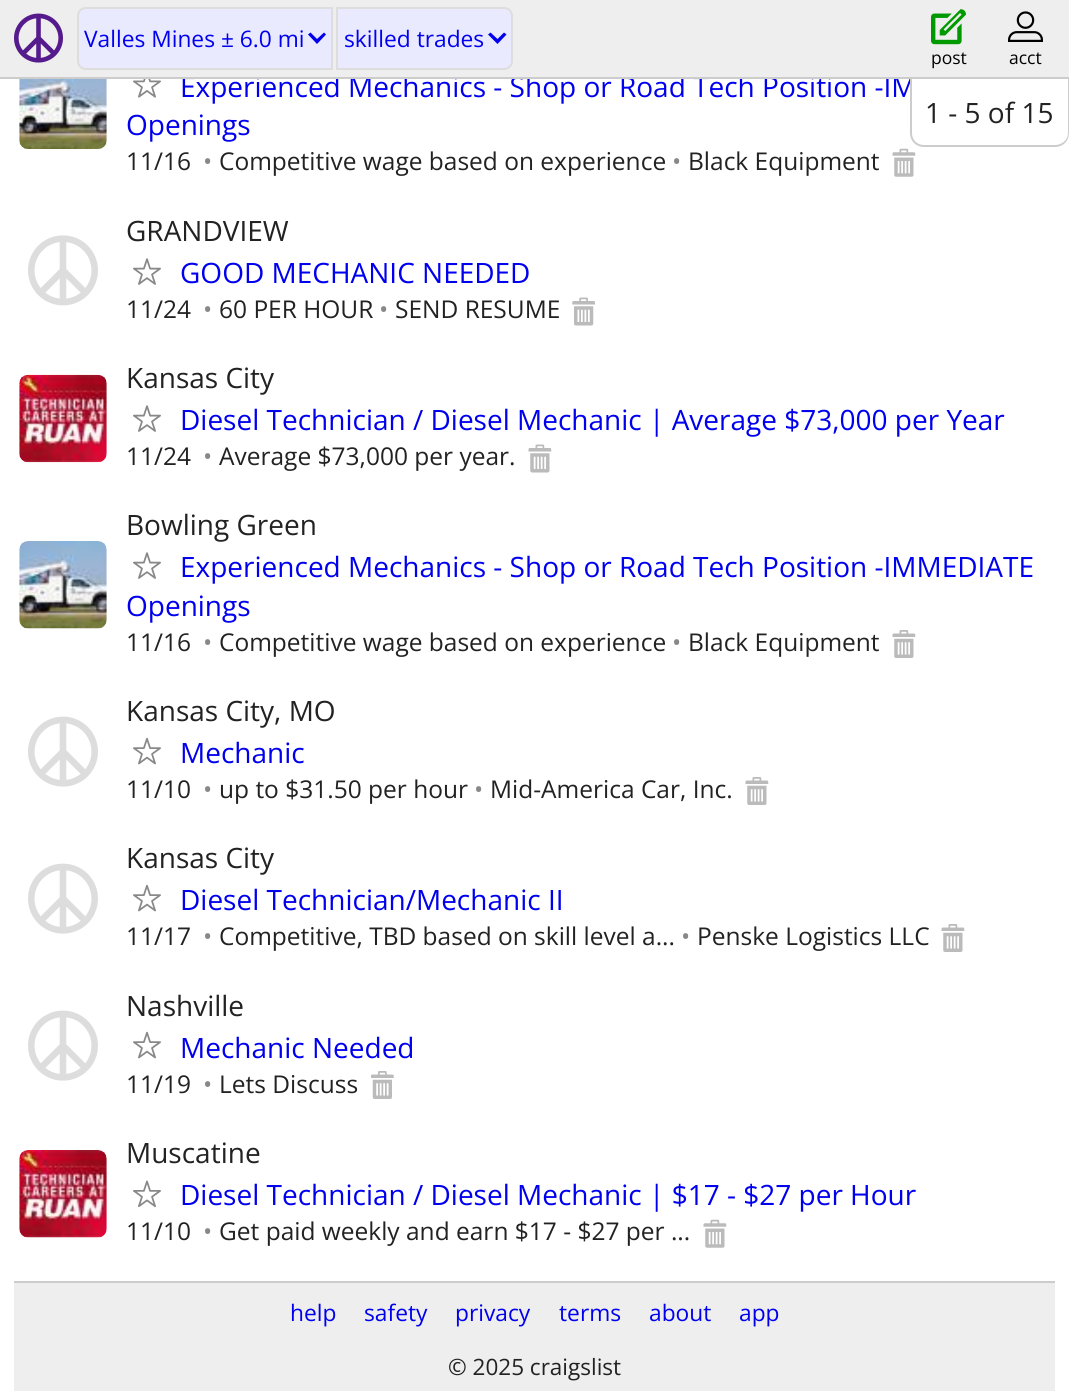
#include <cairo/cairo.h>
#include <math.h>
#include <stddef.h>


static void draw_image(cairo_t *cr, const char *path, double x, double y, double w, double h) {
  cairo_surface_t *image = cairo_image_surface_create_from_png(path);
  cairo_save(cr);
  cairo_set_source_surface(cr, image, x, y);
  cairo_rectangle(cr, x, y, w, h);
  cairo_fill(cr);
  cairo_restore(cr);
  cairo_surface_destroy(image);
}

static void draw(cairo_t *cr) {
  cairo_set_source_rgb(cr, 1, 1, 1);
  cairo_paint(cr);
  draw_image(cr, "images/4.png", 19, 79, 88, 70);
  draw_image(cr, "images/5.png", 133, 79, 28, 19);
  draw_image(cr, "images/6.png", 892, 148, 24, 29);
  draw_image(cr, "images/7.png", 28, 235, 70, 71);
  draw_image(cr, "images/8.png", 133, 258, 28, 27);
  draw_image(cr, "images/9.png", 572, 297, 23, 29);
  draw_image(cr, "images/10.png", 19, 374, 88, 89);
  draw_image(cr, "images/8.png", 133, 405, 28, 27);
  draw_image(cr, "images/11.png", 528, 444, 24, 29);
  draw_image(cr, "images/12.png", 19, 541, 88, 88);
  draw_image(cr, "images/8.png", 133, 552, 28, 27);
  draw_image(cr, "images/13.png", 892, 630, 24, 28);
  draw_image(cr, "images/14.png", 28, 716, 70, 71);
  draw_image(cr, "images/15.png", 133, 737, 28, 28);
  draw_image(cr, "images/13.png", 745, 777, 24, 28);
  draw_image(cr, "images/14.png", 28, 863, 70, 71);
  draw_image(cr, "images/15.png", 133, 884, 28, 28);
  draw_image(cr, "images/13.png", 941, 924, 24, 28);
  draw_image(cr, "images/14.png", 28, 1010, 70, 71);
  draw_image(cr, "images/15.png", 133, 1031, 28, 28);
  draw_image(cr, "images/16.png", 371, 1071, 23, 28);
  draw_image(cr, "images/17.png", 19, 1150, 88, 88);
  draw_image(cr, "images/18.png", 133, 1180, 28, 28);
  draw_image(cr, "images/6.png", 703, 1219, 24, 29);
  cairo_set_source_rgb(cr, 238 / 255.0, 238 / 255.0, 238 / 255.0);
  cairo_rectangle(cr, 14, 1283, 1041, 108);
  cairo_fill(cr);
  cairo_set_source_rgb(cr, 204 / 255.0, 204 / 255.0, 204 / 255.0);
  cairo_rectangle(cr, 14, 1281, 1041, 2);
  cairo_fill(cr);
  cairo_select_font_face(cr, "Open Sans", CAIRO_FONT_SLANT_NORMAL, CAIRO_FONT_WEIGHT_NORMAL);
  cairo_set_font_size(cr, 28);
  cairo_set_source_rgb(cr, 0, 0, 238 / 255.0);
  cairo_move_to(cr, 180, 97);
  cairo_show_text(cr, "Experienced Mechanics - Shop or Road Tech Position -IM");
  cairo_set_source_rgb(cr, 238 / 255.0, 238 / 255.0, 238 / 255.0);
  cairo_rectangle(cr, 0, 0, 1069, 77);
  cairo_fill(cr);
  draw_image(cr, "images/3.png", 1008, 11, 35, 31);
  cairo_set_font_size(cr, 17.5);
  cairo_set_source_rgb(cr, 0, 0, 0);
  cairo_move_to(cr, 1009, 64);
  cairo_show_text(cr, "acct");
  draw_image(cr, "images/2.png", 931, 9, 35, 36);
  cairo_move_to(cr, 931, 64);
  cairo_show_text(cr, "post");
  cairo_set_source_rgb(cr, 234 / 255.0, 234 / 255.0, 1);
  cairo_new_path(cr);
  cairo_move_to(cr, 337, 8);
  cairo_line_to(cr, 504, 8);
  cairo_curve_to(cr, 508.5, 8, 512, 11.5, 512, 16);
  cairo_line_to(cr, 512, 61);
  cairo_curve_to(cr, 512, 65.5, 508.5, 69, 504, 69);
  cairo_line_to(cr, 337, 69);
  cairo_close_path(cr);
  cairo_fill_preserve(cr);
  cairo_set_source_rgb(cr, 221 / 255.0, 221 / 255.0, 221 / 255.0);
  cairo_stroke(cr);
  cairo_set_font_size(cr, 22.75);
  cairo_set_source_rgb(cr, 0, 0, 238 / 255.0);
  cairo_move_to(cr, 344, 47);
  cairo_show_text(cr, "skilled trades");
  cairo_set_source_rgb(cr, 234 / 255.0, 234 / 255.0, 1);
  cairo_new_path(cr);
  cairo_move_to(cr, 86, 8);
  cairo_line_to(cr, 332, 8);
  cairo_line_to(cr, 332, 69);
  cairo_line_to(cr, 86, 69);
  cairo_curve_to(cr, 81.5, 69, 78, 65.5, 78, 61);
  cairo_line_to(cr, 78, 16);
  cairo_curve_to(cr, 78, 11.5, 81.5, 8, 86, 8);
  cairo_close_path(cr);
  cairo_fill_preserve(cr);
  cairo_set_source_rgb(cr, 221 / 255.0, 221 / 255.0, 221 / 255.0);
  cairo_stroke(cr);
  cairo_set_source_rgb(cr, 0, 0, 238 / 255.0);
  cairo_move_to(cr, 84, 47);
  cairo_show_text(cr, "Valles Mines ± 6.0 mi");
  cairo_new_path(cr);
  cairo_move_to(cr, 506.5, 34.5);
  cairo_line_to(cr, 504, 32.5);
  cairo_line_to(cr, 497.5, 39);
  cairo_line_to(cr, 490.5, 32.5);
  cairo_line_to(cr, 488, 34.5);
  cairo_line_to(cr, 497.5, 44);
  cairo_close_path(cr);
  cairo_fill(cr);
  cairo_new_path(cr);
  cairo_move_to(cr, 326, 34.5);
  cairo_line_to(cr, 324, 32.5);
  cairo_line_to(cr, 317, 39);
  cairo_line_to(cr, 310.5, 32.5);
  cairo_line_to(cr, 308, 34.5);
  cairo_line_to(cr, 317, 44);
  cairo_close_path(cr);
  cairo_fill(cr);
  draw_image(cr, "images/1.png", 14, 13, 49, 50);
  cairo_set_source_rgb(cr, 204 / 255.0, 204 / 255.0, 204 / 255.0);
  cairo_rectangle(cr, 0, 77, 1069, 2);
  cairo_fill(cr);
  cairo_set_font_size(cr, 28);
  cairo_set_source_rgb(cr, 0, 0, 238 / 255.0);
  cairo_move_to(cr, 126, 135);
  cairo_show_text(cr, "Openings");
  cairo_set_font_size(cr, 24.5);
  cairo_set_source_rgb(cr, 34 / 255.0, 34 / 255.0, 34 / 255.0);
  cairo_move_to(cr, 126, 170);
  cairo_show_text(cr, "11/16");
  cairo_set_source_rgb(cr, 136 / 255.0, 136 / 255.0, 136 / 255.0);
  cairo_move_to(cr, 203, 170);
  cairo_show_text(cr, "•");
  cairo_set_source_rgb(cr, 34 / 255.0, 34 / 255.0, 34 / 255.0);
  cairo_move_to(cr, 219, 170);
  cairo_show_text(cr, "Competitive wage based on experience");
  cairo_set_source_rgb(cr, 136 / 255.0, 136 / 255.0, 136 / 255.0);
  cairo_move_to(cr, 672, 170);
  cairo_show_text(cr, "•");
  cairo_set_source_rgb(cr, 34 / 255.0, 34 / 255.0, 34 / 255.0);
  cairo_move_to(cr, 688, 170);
  cairo_show_text(cr, "Black Equipment");
  cairo_set_font_size(cr, 28);
  cairo_move_to(cr, 126, 241);
  cairo_show_text(cr, "GRANDVIEW");
  cairo_set_source_rgb(cr, 0, 0, 238 / 255.0);
  cairo_move_to(cr, 180, 283);
  cairo_show_text(cr, "GOOD MECHANIC NEEDED");
  cairo_set_font_size(cr, 24.5);
  cairo_set_source_rgb(cr, 34 / 255.0, 34 / 255.0, 34 / 255.0);
  cairo_move_to(cr, 126, 318);
  cairo_show_text(cr, "11/24");
  cairo_set_source_rgb(cr, 136 / 255.0, 136 / 255.0, 136 / 255.0);
  cairo_move_to(cr, 203, 318);
  cairo_show_text(cr, "•");
  cairo_set_source_rgb(cr, 34 / 255.0, 34 / 255.0, 34 / 255.0);
  cairo_move_to(cr, 219, 318);
  cairo_show_text(cr, "60 PER HOUR");
  cairo_set_source_rgb(cr, 136 / 255.0, 136 / 255.0, 136 / 255.0);
  cairo_move_to(cr, 379, 318);
  cairo_show_text(cr, "•");
  cairo_set_source_rgb(cr, 34 / 255.0, 34 / 255.0, 34 / 255.0);
  cairo_move_to(cr, 395, 318);
  cairo_show_text(cr, "SEND RESUME");
  cairo_set_font_size(cr, 28);
  cairo_move_to(cr, 126, 388);
  cairo_show_text(cr, "Kansas City");
  cairo_set_source_rgb(cr, 0, 0, 238 / 255.0);
  cairo_move_to(cr, 180, 430);
  cairo_show_text(cr, "Diesel Technician / Diesel Mechanic | Average $73,000 per Year");
  cairo_set_font_size(cr, 24.5);
  cairo_set_source_rgb(cr, 34 / 255.0, 34 / 255.0, 34 / 255.0);
  cairo_move_to(cr, 126, 465);
  cairo_show_text(cr, "11/24");
  cairo_set_source_rgb(cr, 136 / 255.0, 136 / 255.0, 136 / 255.0);
  cairo_move_to(cr, 203, 465);
  cairo_show_text(cr, "•");
  cairo_set_source_rgb(cr, 34 / 255.0, 34 / 255.0, 34 / 255.0);
  cairo_move_to(cr, 219, 465);
  cairo_show_text(cr, "Average $73,000 per year.");
  cairo_set_font_size(cr, 28);
  cairo_move_to(cr, 126, 535);
  cairo_show_text(cr, "Bowling Green");
  cairo_set_source_rgb(cr, 0, 0, 238 / 255.0);
  cairo_move_to(cr, 180, 577);
  cairo_show_text(cr, "Experienced Mechanics - Shop or Road Tech Position -IMMEDIATE");
  cairo_move_to(cr, 126, 616);
  cairo_show_text(cr, "Openings");
  cairo_set_font_size(cr, 24.5);
  cairo_set_source_rgb(cr, 34 / 255.0, 34 / 255.0, 34 / 255.0);
  cairo_move_to(cr, 126, 651);
  cairo_show_text(cr, "11/16");
  cairo_set_source_rgb(cr, 136 / 255.0, 136 / 255.0, 136 / 255.0);
  cairo_move_to(cr, 203, 651);
  cairo_show_text(cr, "•");
  cairo_set_source_rgb(cr, 34 / 255.0, 34 / 255.0, 34 / 255.0);
  cairo_move_to(cr, 219, 651);
  cairo_show_text(cr, "Competitive wage based on experience");
  cairo_set_source_rgb(cr, 136 / 255.0, 136 / 255.0, 136 / 255.0);
  cairo_move_to(cr, 672, 651);
  cairo_show_text(cr, "•");
  cairo_set_source_rgb(cr, 34 / 255.0, 34 / 255.0, 34 / 255.0);
  cairo_move_to(cr, 688, 651);
  cairo_show_text(cr, "Black Equipment");
  cairo_set_font_size(cr, 28);
  cairo_move_to(cr, 126, 721);
  cairo_show_text(cr, "Kansas City, MO");
  cairo_set_source_rgb(cr, 0, 0, 238 / 255.0);
  cairo_move_to(cr, 180, 763);
  cairo_show_text(cr, "Mechanic");
  cairo_set_font_size(cr, 24.5);
  cairo_set_source_rgb(cr, 34 / 255.0, 34 / 255.0, 34 / 255.0);
  cairo_move_to(cr, 126, 798);
  cairo_show_text(cr, "11/10");
  cairo_set_source_rgb(cr, 136 / 255.0, 136 / 255.0, 136 / 255.0);
  cairo_move_to(cr, 203, 798);
  cairo_show_text(cr, "•");
  cairo_set_source_rgb(cr, 34 / 255.0, 34 / 255.0, 34 / 255.0);
  cairo_move_to(cr, 219, 798);
  cairo_show_text(cr, "up to $31.50 per hour");
  cairo_set_source_rgb(cr, 136 / 255.0, 136 / 255.0, 136 / 255.0);
  cairo_move_to(cr, 474, 798);
  cairo_show_text(cr, "•");
  cairo_set_source_rgb(cr, 34 / 255.0, 34 / 255.0, 34 / 255.0);
  cairo_move_to(cr, 490, 798);
  cairo_show_text(cr, "Mid-America Car, Inc.");
  cairo_set_font_size(cr, 28);
  cairo_move_to(cr, 126, 868);
  cairo_show_text(cr, "Kansas City");
  cairo_set_source_rgb(cr, 0, 0, 238 / 255.0);
  cairo_move_to(cr, 180, 910);
  cairo_show_text(cr, "Diesel Technician/Mechanic II");
  cairo_set_font_size(cr, 24.5);
  cairo_set_source_rgb(cr, 34 / 255.0, 34 / 255.0, 34 / 255.0);
  cairo_move_to(cr, 126, 945);
  cairo_show_text(cr, "11/17");
  cairo_set_source_rgb(cr, 136 / 255.0, 136 / 255.0, 136 / 255.0);
  cairo_move_to(cr, 203, 945);
  cairo_show_text(cr, "•");
  cairo_set_source_rgb(cr, 34 / 255.0, 34 / 255.0, 34 / 255.0);
  cairo_move_to(cr, 219, 945);
  cairo_show_text(cr, "Competitive, TBD based on skill level a...");
  cairo_set_source_rgb(cr, 136 / 255.0, 136 / 255.0, 136 / 255.0);
  cairo_move_to(cr, 681, 945);
  cairo_show_text(cr, "•");
  cairo_set_source_rgb(cr, 34 / 255.0, 34 / 255.0, 34 / 255.0);
  cairo_move_to(cr, 697, 945);
  cairo_show_text(cr, "Penske Logistics LLC");
  cairo_set_font_size(cr, 28);
  cairo_move_to(cr, 126, 1016);
  cairo_show_text(cr, "Nashville");
  cairo_set_source_rgb(cr, 0, 0, 238 / 255.0);
  cairo_move_to(cr, 180, 1058);
  cairo_show_text(cr, "Mechanic Needed");
  cairo_set_font_size(cr, 24.5);
  cairo_set_source_rgb(cr, 34 / 255.0, 34 / 255.0, 34 / 255.0);
  cairo_move_to(cr, 126, 1093);
  cairo_show_text(cr, "11/19");
  cairo_set_source_rgb(cr, 136 / 255.0, 136 / 255.0, 136 / 255.0);
  cairo_move_to(cr, 203, 1093);
  cairo_show_text(cr, "•");
  cairo_set_source_rgb(cr, 34 / 255.0, 34 / 255.0, 34 / 255.0);
  cairo_move_to(cr, 219, 1093);
  cairo_show_text(cr, "Lets Discuss");
  cairo_set_font_size(cr, 28);
  cairo_move_to(cr, 126, 1163);
  cairo_show_text(cr, "Muscatine");
  cairo_set_source_rgb(cr, 0, 0, 238 / 255.0);
  cairo_move_to(cr, 180, 1205);
  cairo_show_text(cr, "Diesel Technician / Diesel Mechanic | $17 - $27 per Hour");
  cairo_set_font_size(cr, 24.5);
  cairo_set_source_rgb(cr, 34 / 255.0, 34 / 255.0, 34 / 255.0);
  cairo_move_to(cr, 126, 1240);
  cairo_show_text(cr, "11/10");
  cairo_set_source_rgb(cr, 136 / 255.0, 136 / 255.0, 136 / 255.0);
  cairo_move_to(cr, 203, 1240);
  cairo_show_text(cr, "•");
  cairo_set_source_rgb(cr, 34 / 255.0, 34 / 255.0, 34 / 255.0);
  cairo_move_to(cr, 219, 1240);
  cairo_show_text(cr, "Get paid weekly and earn $17 - $27 per ...");
  cairo_set_font_size(cr, 22.75);
  cairo_set_source_rgb(cr, 0, 0, 238 / 255.0);
  cairo_move_to(cr, 290, 1321);
  cairo_show_text(cr, "help");
  cairo_move_to(cr, 364, 1321);
  cairo_show_text(cr, "safety");
  cairo_move_to(cr, 455, 1321);
  cairo_show_text(cr, "privacy");
  cairo_move_to(cr, 559, 1321);
  cairo_show_text(cr, "terms");
  cairo_move_to(cr, 649, 1321);
  cairo_show_text(cr, "about");
  cairo_move_to(cr, 739, 1321);
  cairo_show_text(cr, "app");
  cairo_set_font_size(cr, 22.5);
  cairo_set_source_rgb(cr, 34 / 255.0, 34 / 255.0, 34 / 255.0);
  cairo_move_to(cr, 448, 1375);
  cairo_show_text(cr, "© 2025 craigslist");
  cairo_set_source_rgb(cr, 1, 1, 1);
  cairo_new_path(cr);
  cairo_move_to(cr, 912, 79);
  cairo_line_to(cr, 1068, 79);
  cairo_line_to(cr, 1068, 133);
  cairo_curve_to(cr, 1068, 139.5, 1062.5, 145, 1056, 145);
  cairo_line_to(cr, 924, 145);
  cairo_curve_to(cr, 917.5, 145, 912, 139.5, 912, 133);
  cairo_close_path(cr);
  cairo_fill(cr);
  cairo_set_source_rgb(cr, 204 / 255.0, 204 / 255.0, 204 / 255.0);
  cairo_set_fill_rule(cr, CAIRO_FILL_RULE_EVEN_ODD);
  cairo_new_path(cr);
  cairo_move_to(cr, 910, 79);
  cairo_line_to(cr, 1069, 79);
  cairo_line_to(cr, 1069, 133);
  cairo_curve_to(cr, 1069, 141, 1063, 147, 1055, 147);
  cairo_line_to(cr, 924, 147);
  cairo_curve_to(cr, 916, 147, 910, 141, 910, 133);
  cairo_close_path(cr);
  cairo_move_to(cr, 912, 79);
  cairo_line_to(cr, 1068, 79);
  cairo_line_to(cr, 1068, 133);
  cairo_curve_to(cr, 1068, 140, 1062, 145, 1055, 145);
  cairo_line_to(cr, 924, 145);
  cairo_curve_to(cr, 917, 145, 912, 140, 912, 133);
  cairo_close_path(cr);
  cairo_fill(cr);
  cairo_set_font_size(cr, 28);
  cairo_set_source_rgb(cr, 34 / 255.0, 34 / 255.0, 34 / 255.0);
  cairo_move_to(cr, 925, 123);
  cairo_show_text(cr, "1 - 5 of 15");
}

int main(void) {
  cairo_surface_t *surface = cairo_image_surface_create(CAIRO_FORMAT_RGB24, 1069, 1391);
  cairo_t *cr = cairo_create(surface);
  cairo_font_options_t *options = cairo_font_options_create();
  cairo_font_options_set_hint_metrics(options, CAIRO_HINT_METRICS_OFF);
  cairo_font_options_set_hint_style(options, CAIRO_HINT_STYLE_NONE);
  cairo_set_font_options(cr, options);
  cairo_set_miter_limit(cr, 4);
  draw(cr);
  cairo_surface_write_to_png(surface, "out.png");
  cairo_font_options_destroy(options);
  cairo_destroy(cr);
  cairo_surface_destroy(surface);
  return 0;
}
